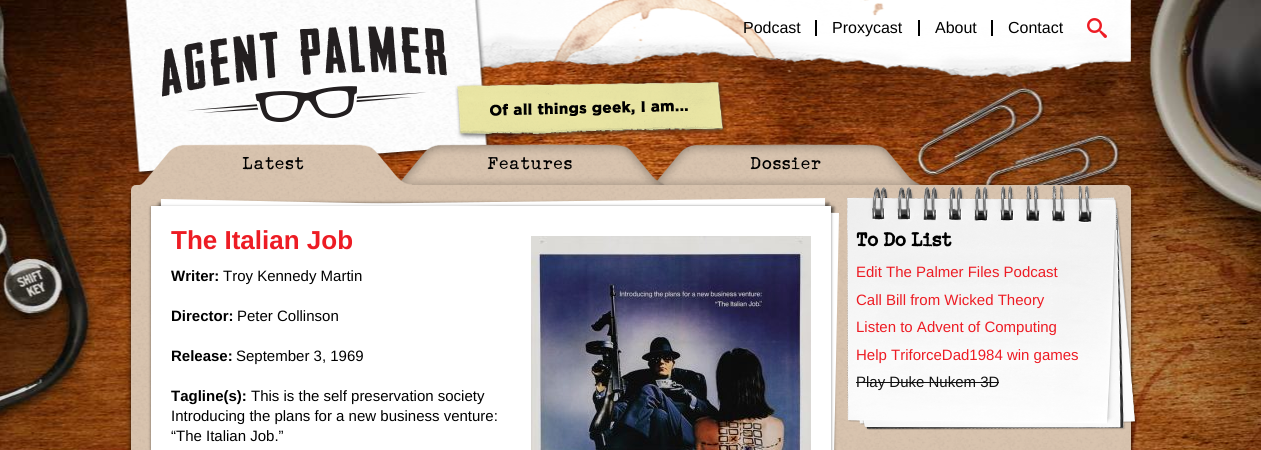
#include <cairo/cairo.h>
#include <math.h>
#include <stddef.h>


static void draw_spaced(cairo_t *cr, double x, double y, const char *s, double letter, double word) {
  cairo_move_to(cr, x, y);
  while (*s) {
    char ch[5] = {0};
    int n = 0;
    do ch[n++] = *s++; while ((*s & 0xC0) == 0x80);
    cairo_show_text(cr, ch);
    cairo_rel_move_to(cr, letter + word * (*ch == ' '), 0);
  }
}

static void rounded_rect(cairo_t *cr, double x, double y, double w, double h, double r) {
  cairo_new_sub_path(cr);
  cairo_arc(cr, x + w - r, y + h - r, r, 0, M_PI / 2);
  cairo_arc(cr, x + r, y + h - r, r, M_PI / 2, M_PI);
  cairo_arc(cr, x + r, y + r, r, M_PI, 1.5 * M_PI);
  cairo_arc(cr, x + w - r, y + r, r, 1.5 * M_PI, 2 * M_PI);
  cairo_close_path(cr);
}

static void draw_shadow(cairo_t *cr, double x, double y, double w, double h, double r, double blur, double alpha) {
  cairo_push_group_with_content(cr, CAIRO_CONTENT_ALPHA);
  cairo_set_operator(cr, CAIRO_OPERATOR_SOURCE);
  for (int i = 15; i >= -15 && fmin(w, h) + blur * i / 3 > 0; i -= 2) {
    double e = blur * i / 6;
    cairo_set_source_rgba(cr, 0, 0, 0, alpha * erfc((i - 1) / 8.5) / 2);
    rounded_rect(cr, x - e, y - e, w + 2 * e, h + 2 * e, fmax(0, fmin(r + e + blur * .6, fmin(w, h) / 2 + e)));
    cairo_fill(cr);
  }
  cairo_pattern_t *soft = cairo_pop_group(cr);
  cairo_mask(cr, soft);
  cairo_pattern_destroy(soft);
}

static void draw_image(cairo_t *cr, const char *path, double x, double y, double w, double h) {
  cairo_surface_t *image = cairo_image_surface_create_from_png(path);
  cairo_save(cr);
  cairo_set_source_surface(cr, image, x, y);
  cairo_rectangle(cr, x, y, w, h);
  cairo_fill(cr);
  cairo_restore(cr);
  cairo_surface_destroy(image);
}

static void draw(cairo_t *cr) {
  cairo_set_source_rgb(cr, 1, 1, 1);
  cairo_paint(cr);
  draw_image(cr, "images/1.png", 0, 0, 1261, 450);
  draw_image(cr, "images/2.png", 125, 0, 1006, 176);
  draw_image(cr, "images/3.png", 162, 26, 285, 99);
  draw_image(cr, "images/4.png", 455, 81, 272, 59);
  cairo_set_source_rgb(cr, 0, 0, 0);
  cairo_rectangle(cr, 815, 20, 2, 16);
  cairo_fill(cr);
  cairo_rectangle(cr, 918, 20, 2, 16);
  cairo_fill(cr);
  cairo_rectangle(cr, 991, 20, 2, 16);
  cairo_fill(cr);
  draw_image(cr, "images/5.png", 1087, 18, 20, 20);
  cairo_set_source_rgb(cr, 0, 0, 0);
  draw_shadow(cr, 131, 186, 1000, 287, 15, 2.5, 0.75);
  draw_image(cr, "images/6.png", 131, 185, 1000, 265);
  draw_image(cr, "images/9.png", 657, 144, 264, 41);
  draw_image(cr, "images/8.png", 401, 144, 264, 41);
  draw_image(cr, "images/7.png", 139, 144, 273, 41);
  draw_shadow(cr, 159, 203, 670, 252, 0, 1.5, 0.5);
  cairo_set_source_rgb(cr, 1, 1, 1);
  cairo_new_path(cr);
  cairo_move_to(cr, 156, 206);
  cairo_line_to(cr, 825, 198);
  cairo_line_to(cr, 832, 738);
  cairo_line_to(cr, 162, 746);
  cairo_close_path(cr);
  cairo_fill(cr);
  cairo_set_source_rgb(cr, 0, 0, 0);
  draw_shadow(cr, 156, 207, 678, 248, 0, 1.5, 0.5);
  cairo_set_source_rgb(cr, 1, 1, 1);
  cairo_new_path(cr);
  cairo_move_to(cr, 161, 199);
  cairo_line_to(cr, 839, 213);
  cairo_line_to(cr, 828, 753);
  cairo_line_to(cr, 150, 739);
  cairo_close_path(cr);
  cairo_fill(cr);
  cairo_set_source_rgb(cr, 0, 0, 0);
  draw_shadow(cr, 151, 207, 680, 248, 0, 1.5, 0.5);
  cairo_set_source_rgb(cr, 1, 1, 1);
  cairo_rectangle(cr, 151, 206, 680, 244);
  cairo_fill(cr);
  draw_image(cr, "images/10.png", 531, 236, 280, 214);
  draw_image(cr, "images/11.png", 847, 186, 289, 244);
  cairo_set_source_rgb(cr, 17 / 255.0, 17 / 255.0, 17 / 255.0);
  cairo_rectangle(cr, 856, 382, 143, 1);
  cairo_fill(cr);
  cairo_select_font_face(cr, "Liberation Sans", CAIRO_FONT_SLANT_NORMAL, CAIRO_FONT_WEIGHT_NORMAL);
  cairo_set_font_size(cr, 16);
  cairo_set_source_rgb(cr, 0, 0, 0);
  cairo_move_to(cr, 743, 33);
  cairo_show_text(cr, "Podcast");
  cairo_move_to(cr, 832, 33);
  cairo_show_text(cr, "Proxycast");
  cairo_move_to(cr, 935, 33);
  cairo_show_text(cr, "About");
  cairo_move_to(cr, 1008, 33);
  cairo_show_text(cr, "Contact");
  cairo_select_font_face(cr, "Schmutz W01", CAIRO_FONT_SLANT_NORMAL, CAIRO_FONT_WEIGHT_NORMAL);
  cairo_set_font_size(cr, 20);
  draw_spaced(cr, 242, 169, "Latest", 1, 0);
  draw_spaced(cr, 487, 169, "Features", 1, 0);
  draw_spaced(cr, 750, 169, "Dossier", 1, 0);
  cairo_select_font_face(cr, "Liberation Sans", CAIRO_FONT_SLANT_NORMAL, CAIRO_FONT_WEIGHT_BOLD);
  cairo_set_font_size(cr, 26);
  cairo_set_source_rgb(cr, 237 / 255.0, 28 / 255.0, 36 / 255.0);
  cairo_move_to(cr, 171, 249);
  cairo_show_text(cr, "The Italian Job");
  cairo_set_font_size(cr, 15);
  cairo_set_source_rgb(cr, 0, 0, 0);
  cairo_move_to(cr, 171, 281);
  cairo_show_text(cr, "Writer:");
  cairo_select_font_face(cr, "Liberation Sans", CAIRO_FONT_SLANT_NORMAL, CAIRO_FONT_WEIGHT_NORMAL);
  cairo_move_to(cr, 223, 281);
  cairo_show_text(cr, "Troy Kennedy Martin");
  cairo_select_font_face(cr, "Liberation Sans", CAIRO_FONT_SLANT_NORMAL, CAIRO_FONT_WEIGHT_BOLD);
  cairo_move_to(cr, 171, 321);
  cairo_show_text(cr, "Director:");
  cairo_select_font_face(cr, "Liberation Sans", CAIRO_FONT_SLANT_NORMAL, CAIRO_FONT_WEIGHT_NORMAL);
  cairo_move_to(cr, 237, 321);
  cairo_show_text(cr, "Peter Collinson");
  cairo_select_font_face(cr, "Liberation Sans", CAIRO_FONT_SLANT_NORMAL, CAIRO_FONT_WEIGHT_BOLD);
  cairo_move_to(cr, 171, 361);
  cairo_show_text(cr, "Release:");
  cairo_select_font_face(cr, "Liberation Sans", CAIRO_FONT_SLANT_NORMAL, CAIRO_FONT_WEIGHT_NORMAL);
  cairo_move_to(cr, 236, 361);
  cairo_show_text(cr, "September 3, 1969");
  cairo_select_font_face(cr, "Liberation Sans", CAIRO_FONT_SLANT_NORMAL, CAIRO_FONT_WEIGHT_BOLD);
  cairo_move_to(cr, 171, 401);
  cairo_show_text(cr, "Tagline(s):");
  cairo_select_font_face(cr, "Liberation Sans", CAIRO_FONT_SLANT_NORMAL, CAIRO_FONT_WEIGHT_NORMAL);
  cairo_move_to(cr, 251, 401);
  cairo_show_text(cr, "This is the self preservation society");
  cairo_move_to(cr, 171, 421);
  cairo_show_text(cr, "Introducing the plans for a new business venture:");
  cairo_move_to(cr, 171, 441);
  cairo_show_text(cr, "“The Italian Job.”");
  cairo_select_font_face(cr, "Schmutz W01", CAIRO_FONT_SLANT_NORMAL, CAIRO_FONT_WEIGHT_BOLD);
  cairo_set_font_size(cr, 22);
  cairo_move_to(cr, 856, 246);
  cairo_show_text(cr, "To Do List");
  cairo_select_font_face(cr, "Liberation Sans", CAIRO_FONT_SLANT_NORMAL, CAIRO_FONT_WEIGHT_NORMAL);
  cairo_set_font_size(cr, 15);
  cairo_set_source_rgb(cr, 237 / 255.0, 28 / 255.0, 36 / 255.0);
  cairo_move_to(cr, 856, 277);
  cairo_show_text(cr, "Edit The Palmer Files Podcast");
  cairo_move_to(cr, 856, 305);
  cairo_show_text(cr, "Call Bill from Wicked Theory");
  cairo_move_to(cr, 856, 332);
  cairo_show_text(cr, "Listen to Advent of Computing");
  cairo_move_to(cr, 856, 360);
  cairo_show_text(cr, "Help TriforceDad1984 win games");
  cairo_set_source_rgb(cr, 17 / 255.0, 17 / 255.0, 17 / 255.0);
  cairo_move_to(cr, 856, 387);
  cairo_show_text(cr, "Play Duke Nukem 3D");
}

int main(void) {
  cairo_surface_t *surface = cairo_image_surface_create(CAIRO_FORMAT_RGB24, 1261, 450);
  cairo_t *cr = cairo_create(surface);
  cairo_font_options_t *options = cairo_font_options_create();
  cairo_font_options_set_hint_metrics(options, CAIRO_HINT_METRICS_OFF);
  cairo_font_options_set_hint_style(options, CAIRO_HINT_STYLE_NONE);
  cairo_set_font_options(cr, options);
  cairo_set_miter_limit(cr, 4);
  draw(cr);
  cairo_surface_write_to_png(surface, "out.png");
  cairo_font_options_destroy(options);
  cairo_destroy(cr);
  cairo_surface_destroy(surface);
  return 0;
}
